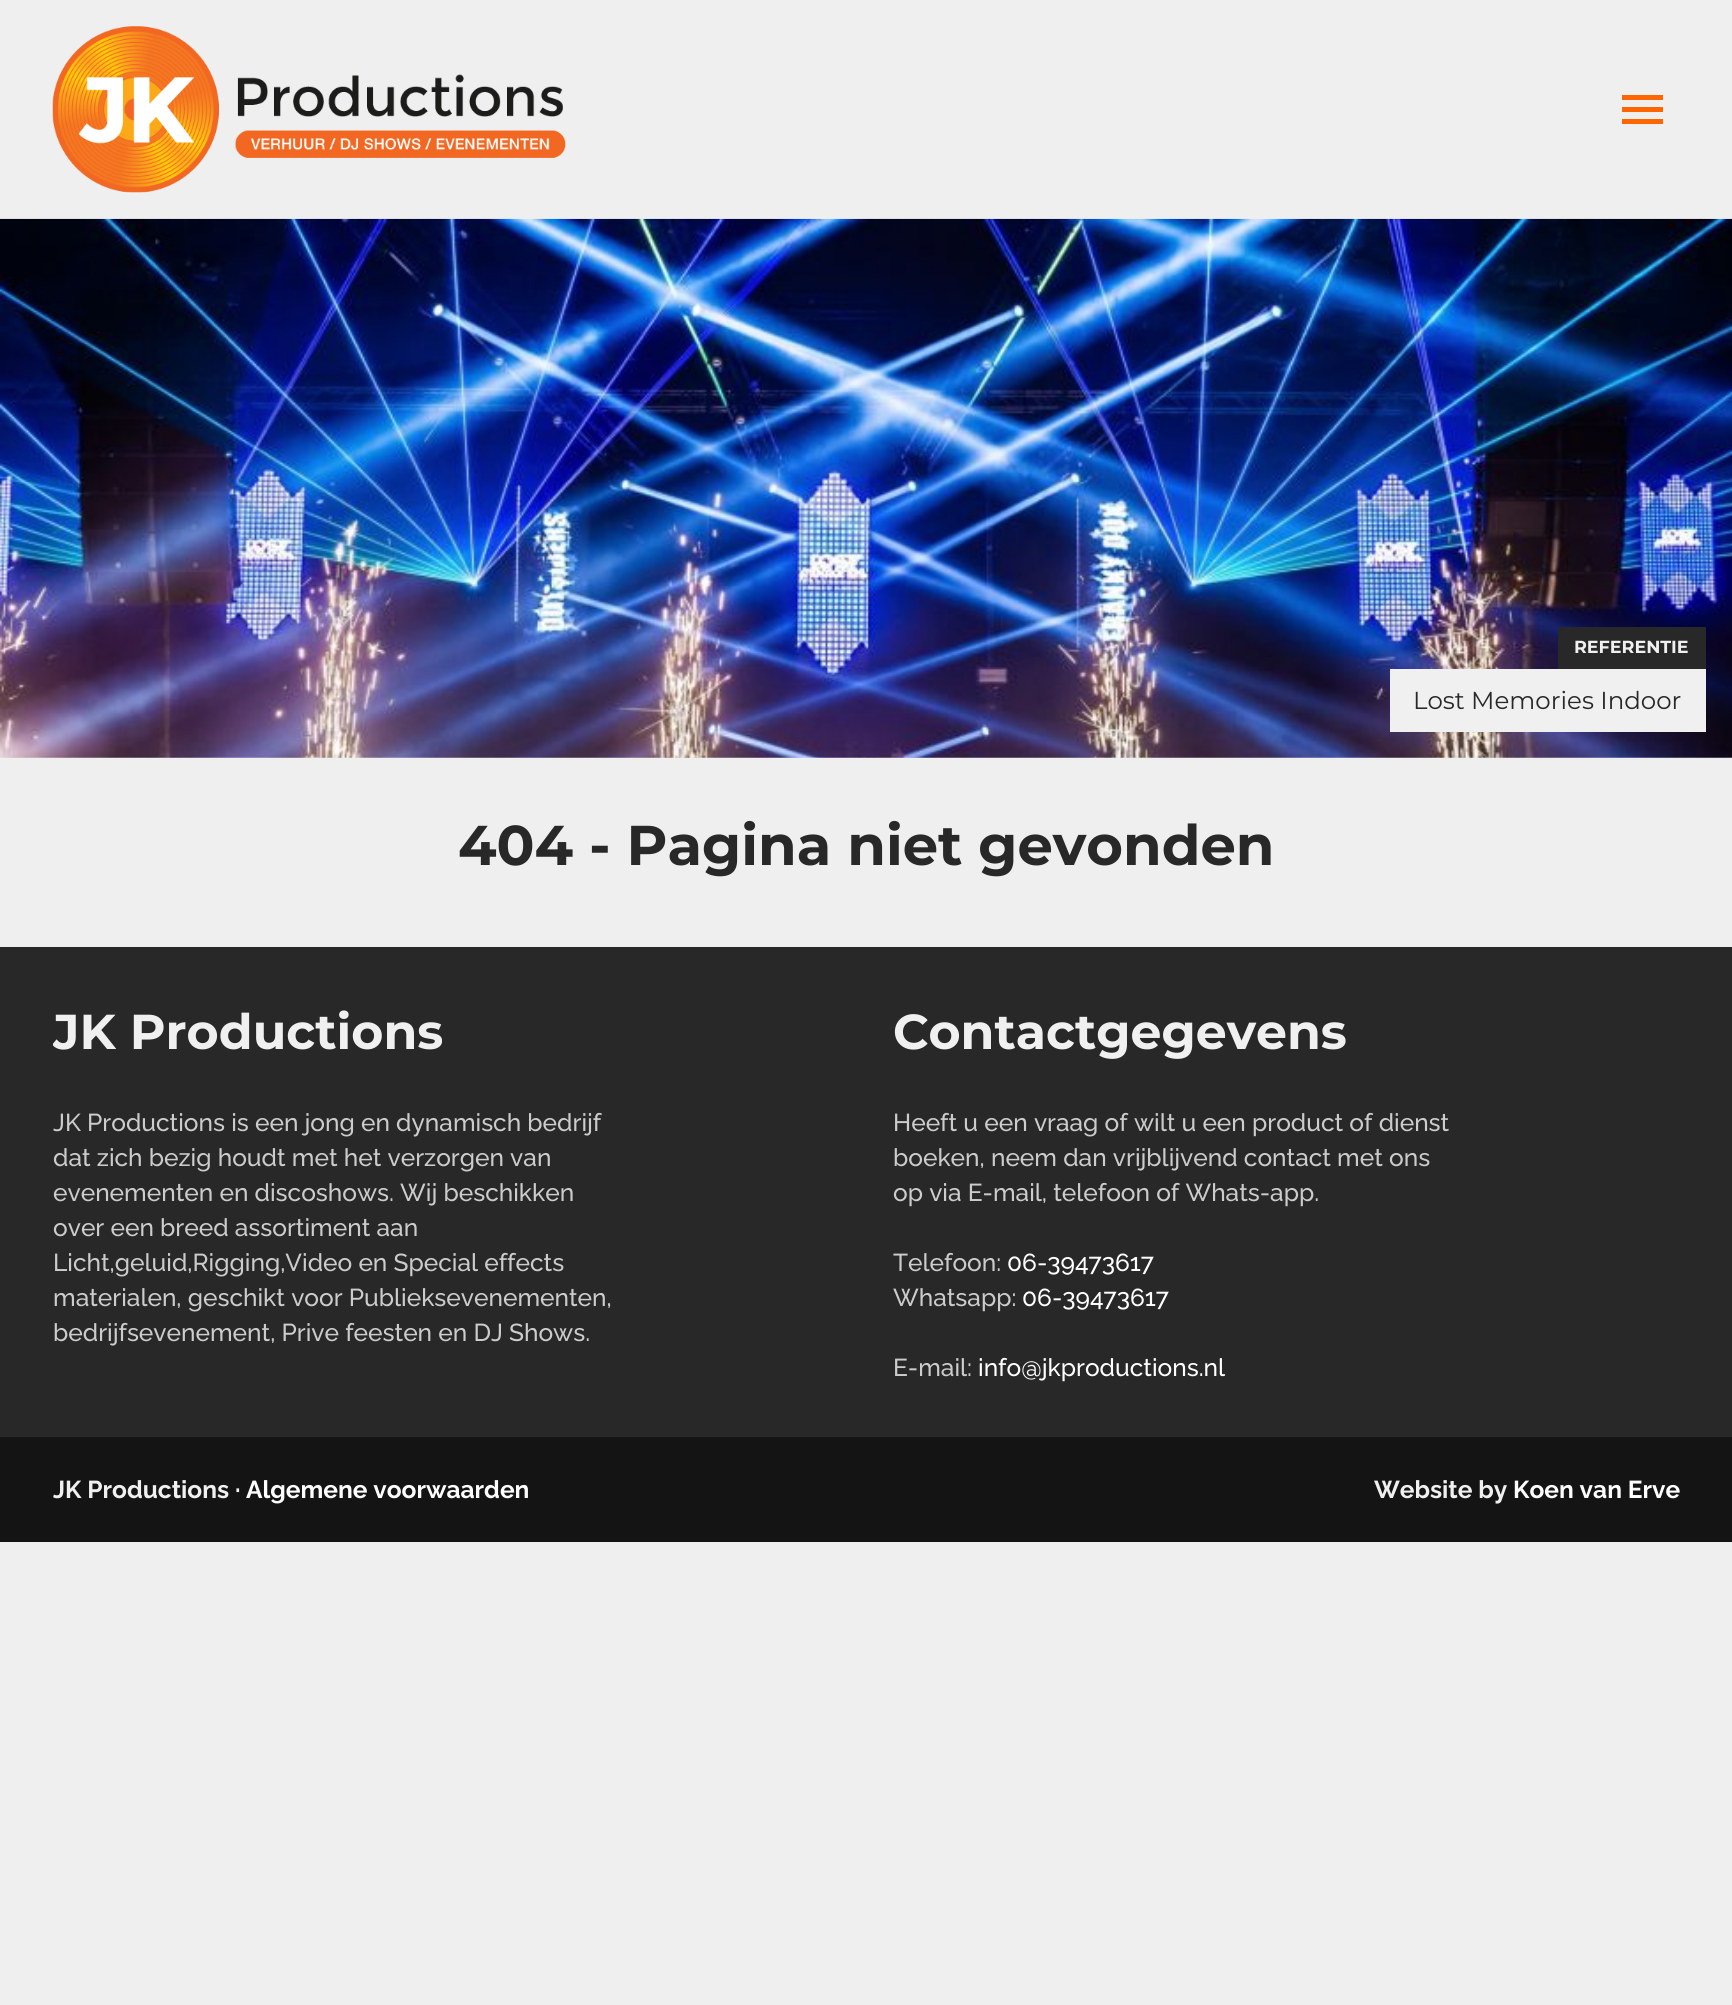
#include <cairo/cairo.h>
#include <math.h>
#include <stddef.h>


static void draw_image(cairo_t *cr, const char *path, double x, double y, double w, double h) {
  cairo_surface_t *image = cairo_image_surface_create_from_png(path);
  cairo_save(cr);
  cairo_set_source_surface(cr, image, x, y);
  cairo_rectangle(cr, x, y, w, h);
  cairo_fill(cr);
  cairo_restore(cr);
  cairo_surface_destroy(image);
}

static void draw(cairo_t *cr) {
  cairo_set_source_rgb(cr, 239 / 255.0, 239 / 255.0, 239 / 255.0);
  cairo_paint(cr);
  draw_image(cr, "images/1.png", 52, 26, 514, 167);
  cairo_set_source_rgb(cr, 1, 102 / 255.0, 0);
  cairo_rectangle(cr, 1622, 95, 41, 5);
  cairo_fill(cr);
  cairo_rectangle(cr, 1622, 107, 41, 5);
  cairo_fill(cr);
  cairo_rectangle(cr, 1622, 119, 41, 5);
  cairo_fill(cr);
  draw_image(cr, "images/2.png", 0, 218, 1732, 540);
  cairo_set_source_rgb(cr, 40 / 255.0, 40 / 255.0, 40 / 255.0);
  cairo_rectangle(cr, 1558, 627, 148, 42);
  cairo_fill(cr);
  cairo_set_source_rgb(cr, 240 / 255.0, 240 / 255.0, 240 / 255.0);
  cairo_rectangle(cr, 1390, 669, 316, 63);
  cairo_fill(cr);
  cairo_set_source_rgb(cr, 40 / 255.0, 40 / 255.0, 40 / 255.0);
  cairo_rectangle(cr, 0, 947, 1732, 490);
  cairo_fill(cr);
  cairo_set_source_rgb(cr, 20 / 255.0, 20 / 255.0, 20 / 255.0);
  cairo_rectangle(cr, 0, 1437, 1732, 105);
  cairo_fill(cr);
  cairo_select_font_face(cr, "Montserrat", CAIRO_FONT_SLANT_NORMAL, CAIRO_FONT_WEIGHT_BOLD);
  cairo_set_font_size(cr, 17.5);
  cairo_set_source_rgb(cr, 240 / 255.0, 240 / 255.0, 240 / 255.0);
  cairo_move_to(cr, 1574, 653);
  cairo_show_text(cr, "REFERENTIE");
  cairo_select_font_face(cr, "Montserrat", CAIRO_FONT_SLANT_NORMAL, CAIRO_FONT_WEIGHT_NORMAL);
  cairo_set_font_size(cr, 24.5);
  cairo_set_source_rgb(cr, 40 / 255.0, 40 / 255.0, 40 / 255.0);
  cairo_move_to(cr, 1413, 709);
  cairo_show_text(cr, "Lost Memories Indoor");
  cairo_select_font_face(cr, "Montserrat", CAIRO_FONT_SLANT_NORMAL, CAIRO_FONT_WEIGHT_BOLD);
  cairo_set_font_size(cr, 56);
  cairo_move_to(cr, 458, 865);
  cairo_show_text(cr, "404 - Pagina niet gevonden");
  cairo_save(cr);
  cairo_rectangle(cr, 53, 999, 1627, 385);
  cairo_clip(cr);
  cairo_set_font_size(cr, 49);
  cairo_set_source_rgb(cr, 240 / 255.0, 240 / 255.0, 240 / 255.0);
  cairo_move_to(cr, 53, 1049);
  cairo_show_text(cr, "JK Productions");
  cairo_restore(cr);
  cairo_select_font_face(cr, "Raleway Medium", CAIRO_FONT_SLANT_NORMAL, CAIRO_FONT_WEIGHT_NORMAL);
  cairo_set_font_size(cr, 24.5);
  cairo_set_source_rgb(cr, 204 / 255.0, 204 / 255.0, 204 / 255.0);
  cairo_move_to(cr, 53, 1131);
  cairo_show_text(cr, "JK Productions is een jong en dynamisch bedrijf");
  cairo_move_to(cr, 53, 1166);
  cairo_show_text(cr, "dat zich bezig houdt met het verzorgen van");
  cairo_move_to(cr, 53, 1201);
  cairo_show_text(cr, "evenementen en discoshows. Wij beschikken");
  cairo_move_to(cr, 53, 1236);
  cairo_show_text(cr, "over een breed assortiment aan");
  cairo_move_to(cr, 53, 1271);
  cairo_show_text(cr, "Licht,geluid,Rigging,Video en Special effects");
  cairo_move_to(cr, 53, 1306);
  cairo_show_text(cr, "materialen, geschikt voor Publieksevenementen,");
  cairo_move_to(cr, 53, 1341);
  cairo_show_text(cr, "bedrijfsevenement, Prive feesten en DJ Shows.");
  cairo_select_font_face(cr, "Montserrat", CAIRO_FONT_SLANT_NORMAL, CAIRO_FONT_WEIGHT_BOLD);
  cairo_set_font_size(cr, 49);
  cairo_set_source_rgb(cr, 240 / 255.0, 240 / 255.0, 240 / 255.0);
  cairo_move_to(cr, 893, 1049);
  cairo_show_text(cr, "Contactgegevens");
  cairo_select_font_face(cr, "Raleway Medium", CAIRO_FONT_SLANT_NORMAL, CAIRO_FONT_WEIGHT_NORMAL);
  cairo_set_font_size(cr, 24.5);
  cairo_set_source_rgb(cr, 204 / 255.0, 204 / 255.0, 204 / 255.0);
  cairo_move_to(cr, 893, 1131);
  cairo_show_text(cr, "Heeft u een vraag of wilt u een product of dienst");
  cairo_move_to(cr, 893, 1166);
  cairo_show_text(cr, "boeken, neem dan vrijblijvend contact met ons");
  cairo_move_to(cr, 893, 1201);
  cairo_show_text(cr, "op via E-mail, telefoon of Whats-app.");
  cairo_move_to(cr, 893, 1271);
  cairo_show_text(cr, "Telefoon:");
  cairo_set_source_rgb(cr, 1, 1, 1);
  cairo_move_to(cr, 1007, 1271);
  cairo_show_text(cr, "06-39473617");
  cairo_set_source_rgb(cr, 204 / 255.0, 204 / 255.0, 204 / 255.0);
  cairo_move_to(cr, 893, 1306);
  cairo_show_text(cr, "Whatsapp:");
  cairo_set_source_rgb(cr, 1, 1, 1);
  cairo_move_to(cr, 1022, 1306);
  cairo_show_text(cr, "06-39473617");
  cairo_set_source_rgb(cr, 204 / 255.0, 204 / 255.0, 204 / 255.0);
  cairo_move_to(cr, 893, 1376);
  cairo_show_text(cr, "E-mail:");
  cairo_set_source_rgb(cr, 1, 1, 1);
  cairo_move_to(cr, 978, 1376);
  cairo_show_text(cr, "info@jkproductions.nl");
  cairo_select_font_face(cr, "Raleway", CAIRO_FONT_SLANT_NORMAL, CAIRO_FONT_WEIGHT_BOLD);
  cairo_set_source_rgb(cr, 240 / 255.0, 240 / 255.0, 240 / 255.0);
  cairo_move_to(cr, 53, 1498);
  cairo_show_text(cr, "JK Productions ·");
  cairo_set_source_rgb(cr, 1, 1, 1);
  cairo_move_to(cr, 246, 1498);
  cairo_show_text(cr, "Algemene voorwaarden");
  cairo_set_source_rgb(cr, 240 / 255.0, 240 / 255.0, 240 / 255.0);
  cairo_move_to(cr, 1374, 1498);
  cairo_show_text(cr, "Website by");
  cairo_set_source_rgb(cr, 1, 1, 1);
  cairo_move_to(cr, 1513, 1498);
  cairo_show_text(cr, "Koen van Erve");
}

int main(void) {
  cairo_surface_t *surface = cairo_image_surface_create(CAIRO_FORMAT_RGB24, 1732, 2005);
  cairo_t *cr = cairo_create(surface);
  cairo_font_options_t *options = cairo_font_options_create();
  cairo_font_options_set_hint_metrics(options, CAIRO_HINT_METRICS_OFF);
  cairo_font_options_set_hint_style(options, CAIRO_HINT_STYLE_NONE);
  cairo_set_font_options(cr, options);
  cairo_set_miter_limit(cr, 4);
  draw(cr);
  cairo_surface_write_to_png(surface, "out.png");
  cairo_font_options_destroy(options);
  cairo_destroy(cr);
  cairo_surface_destroy(surface);
  return 0;
}
